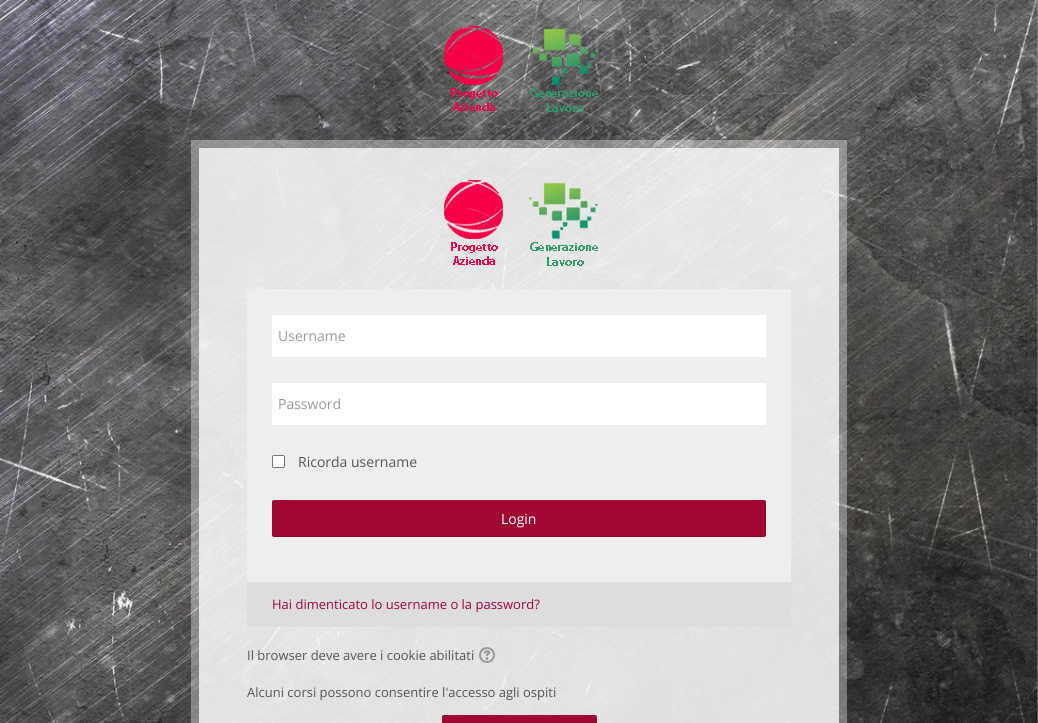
#include <cairo/cairo.h>
#include <math.h>
#include <stddef.h>


static void rounded_rect(cairo_t *cr, double x, double y, double w, double h, double r) {
  cairo_new_sub_path(cr);
  cairo_arc(cr, x + w - r, y + h - r, r, 0, M_PI / 2);
  cairo_arc(cr, x + r, y + h - r, r, M_PI / 2, M_PI);
  cairo_arc(cr, x + r, y + r, r, M_PI, 1.5 * M_PI);
  cairo_arc(cr, x + w - r, y + r, r, 1.5 * M_PI, 2 * M_PI);
  cairo_close_path(cr);
}

static void draw_image(cairo_t *cr, const char *path, double x, double y, double w, double h) {
  cairo_surface_t *image = cairo_image_surface_create_from_png(path);
  cairo_save(cr);
  cairo_set_source_surface(cr, image, x, y);
  cairo_rectangle(cr, x, y, w, h);
  cairo_fill(cr);
  cairo_restore(cr);
  cairo_surface_destroy(image);
}

static void draw(cairo_t *cr) {
  cairo_set_source_rgb(cr, 1, 1, 1);
  cairo_paint(cr);
  draw_image(cr, "images/1.png", 0, 0, 1038, 723);
  draw_image(cr, "images/2.png", 444, 26, 154, 86);
  cairo_set_source_rgba(cr, 1, 1, 1, 0.85);
  cairo_rectangle(cr, 199, 148, 640, 575);
  cairo_fill(cr);
  cairo_new_path(cr);
  cairo_move_to(cr, 195, 144);
  cairo_line_to(cr, 843, 144);
  cairo_line_to(cr, 843, 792);
  cairo_line_to(cr, 195, 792);
  cairo_close_path(cr);
  cairo_set_source_rgba(cr, 1, 1, 1, 0.35);
  cairo_set_line_width(cr, 8);
  cairo_stroke(cr);
  draw_image(cr, "images/3.png", 444, 180, 154, 86);
  cairo_set_source_rgb(cr, 238 / 255.0, 238 / 255.0, 238 / 255.0);
  cairo_rectangle(cr, 247, 289, 544, 293);
  cairo_fill(cr);
  cairo_set_source_rgb(cr, 1, 1, 1);
  cairo_rectangle(cr, 272, 315, 494, 42);
  cairo_fill(cr);
  cairo_rectangle(cr, 272, 383, 494, 42);
  cairo_fill(cr);
  rounded_rect(cr, 272.5, 455.5, 12, 12, 1.5);
  cairo_fill_preserve(cr);
  cairo_set_source_rgb(cr, 118 / 255.0, 118 / 255.0, 118 / 255.0);
  cairo_set_line_width(cr, 1);
  cairo_stroke(cr);
  cairo_set_source_rgb(cr, 160 / 255.0, 6 / 255.0, 50 / 255.0);
  rounded_rect(cr, 272, 500, 494, 37, 2);
  cairo_fill(cr);
  cairo_set_source_rgba(cr, 0, 0, 0, 0.1);
  cairo_new_path(cr);
  cairo_move_to(cr, 272, 534);
  cairo_line_to(cr, 272, 536);
  cairo_line_to(cr, 274, 537);
  cairo_line_to(cr, 765, 537);
  cairo_line_to(cr, 765, 536);
  cairo_line_to(cr, 766, 534);
  cairo_curve_to(cr, 766, 535, 765, 536, 764, 536);
  cairo_line_to(cr, 274, 536);
  cairo_curve_to(cr, 273, 536, 272, 535, 272, 534);
  cairo_close_path(cr);
  cairo_fill(cr);
  cairo_set_source_rgb(cr, 221 / 255.0, 221 / 255.0, 221 / 255.0);
  cairo_rectangle(cr, 247, 582, 544, 45);
  cairo_fill(cr);
  draw_image(cr, "images/4.png", 479, 647, 16, 16);
  cairo_set_source_rgb(cr, 160 / 255.0, 6 / 255.0, 50 / 255.0);
  rounded_rect(cr, 442, 715, 155, 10, 2);
  cairo_fill(cr);
  cairo_select_font_face(cr, "Open Sans", CAIRO_FONT_SLANT_NORMAL, CAIRO_FONT_WEIGHT_NORMAL);
  cairo_set_font_size(cr, 14);
  cairo_set_source_rgb(cr, 153 / 255.0, 153 / 255.0, 153 / 255.0);
  cairo_move_to(cr, 278, 341);
  cairo_show_text(cr, "Username");
  cairo_move_to(cr, 278, 409);
  cairo_show_text(cr, "Password");
  cairo_set_source_rgb(cr, 85 / 255.0, 85 / 255.0, 85 / 255.0);
  cairo_move_to(cr, 298, 467);
  cairo_show_text(cr, "Ricorda username");
  cairo_set_source_rgb(cr, 1, 1, 1);
  cairo_move_to(cr, 501, 524);
  cairo_show_text(cr, "Login");
  cairo_set_font_size(cr, 13);
  cairo_set_source_rgb(cr, 160 / 255.0, 6 / 255.0, 50 / 255.0);
  cairo_move_to(cr, 272, 609);
  cairo_show_text(cr, "Hai dimenticato lo username o la password?");
  cairo_set_source_rgb(cr, 85 / 255.0, 85 / 255.0, 85 / 255.0);
  cairo_move_to(cr, 247, 660);
  cairo_show_text(cr, "Il browser deve avere i cookie abilitati");
  cairo_move_to(cr, 247, 697);
  cairo_show_text(cr, "Alcuni corsi possono consentire l'accesso agli ospiti");
}

int main(void) {
  cairo_surface_t *surface = cairo_image_surface_create(CAIRO_FORMAT_RGB24, 1038, 723);
  cairo_t *cr = cairo_create(surface);
  cairo_font_options_t *options = cairo_font_options_create();
  cairo_font_options_set_hint_metrics(options, CAIRO_HINT_METRICS_OFF);
  cairo_font_options_set_hint_style(options, CAIRO_HINT_STYLE_NONE);
  cairo_set_font_options(cr, options);
  cairo_set_miter_limit(cr, 4);
  draw(cr);
  cairo_surface_write_to_png(surface, "out.png");
  cairo_font_options_destroy(options);
  cairo_destroy(cr);
  cairo_surface_destroy(surface);
  return 0;
}
